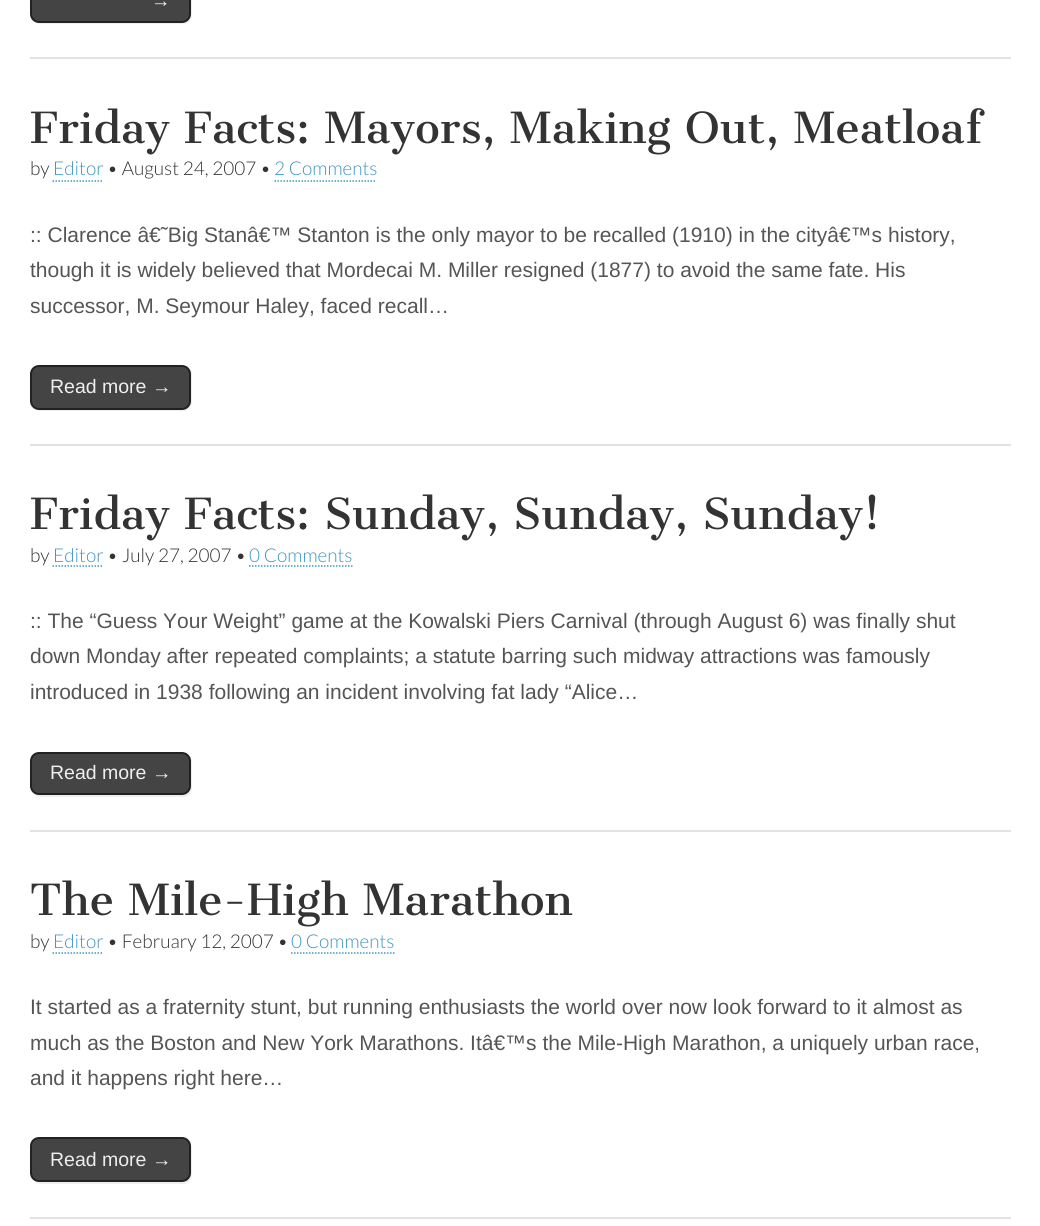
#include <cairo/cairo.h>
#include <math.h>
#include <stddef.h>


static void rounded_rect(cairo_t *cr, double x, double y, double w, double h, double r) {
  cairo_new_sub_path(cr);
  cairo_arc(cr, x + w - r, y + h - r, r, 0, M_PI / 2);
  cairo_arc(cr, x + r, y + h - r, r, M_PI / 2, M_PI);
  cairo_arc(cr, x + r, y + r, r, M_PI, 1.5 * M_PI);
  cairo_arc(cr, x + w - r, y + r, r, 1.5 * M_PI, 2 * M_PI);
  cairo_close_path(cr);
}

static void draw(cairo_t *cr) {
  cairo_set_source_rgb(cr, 1, 1, 1);
  cairo_paint(cr);
  cairo_set_source_rgb(cr, 226 / 255.0, 226 / 255.0, 226 / 255.0);
  cairo_rectangle(cr, 30, 57, 981, 2);
  cairo_fill(cr);
  cairo_set_source_rgb(cr, 238 / 255.0, 238 / 255.0, 238 / 255.0);
  cairo_new_path(cr);
  cairo_move_to(cr, 35, 21);
  cairo_curve_to(cr, 36, 23, 39, 24, 41, 24);
  cairo_line_to(cr, 183, 24);
  cairo_curve_to(cr, 188, 24, 192, 20, 192, 15);
  cairo_line_to(cr, 192, -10);
  cairo_curve_to(cr, 192, -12, 191, -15, 189, -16);
  cairo_curve_to(cr, 190, -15, 190, -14, 190, -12);
  cairo_line_to(cr, 190, 14);
  cairo_curve_to(cr, 190, 18, 186, 22, 182, 22);
  cairo_line_to(cr, 39, 22);
  cairo_curve_to(cr, 37, 22, 36, 22, 35, 21);
  cairo_close_path(cr);
  cairo_fill(cr);
  cairo_set_source_rgb(cr, 68 / 255.0, 68 / 255.0, 68 / 255.0);
  rounded_rect(cr, 31, -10, 159, 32, 8);
  cairo_fill_preserve(cr);
  cairo_set_source_rgb(cr, 34 / 255.0, 34 / 255.0, 34 / 255.0);
  cairo_stroke(cr);
  cairo_new_path(cr);
  cairo_move_to(cr, 52.5, 181);
  cairo_line_to(cr, 103.5, 181);
  cairo_set_source_rgb(cr, 61 / 255.0, 151 / 255.0, 194 / 255.0);
  cairo_set_line_width(cr, 1.5);
  cairo_set_dash(cr, (double[]){1.5, 1.5}, 2, 0);
  cairo_stroke(cr);
  cairo_new_path(cr);
  cairo_move_to(cr, 274.5, 181);
  cairo_line_to(cr, 376.5, 181);
  cairo_stroke(cr);
  cairo_set_source_rgb(cr, 226 / 255.0, 226 / 255.0, 226 / 255.0);
  cairo_rectangle(cr, 30, 444, 981, 2);
  cairo_fill(cr);
  cairo_set_source_rgb(cr, 238 / 255.0, 238 / 255.0, 238 / 255.0);
  cairo_new_path(cr);
  cairo_move_to(cr, 35, 408);
  cairo_curve_to(cr, 36, 410, 39, 411, 41, 411);
  cairo_line_to(cr, 183, 411);
  cairo_curve_to(cr, 188, 411, 192, 407, 192, 402);
  cairo_line_to(cr, 192, 375);
  cairo_curve_to(cr, 192, 372, 191, 370, 189, 368);
  cairo_curve_to(cr, 190, 369, 190, 371, 190, 374);
  cairo_line_to(cr, 190, 400);
  cairo_curve_to(cr, 190, 405, 186, 410, 182, 410);
  cairo_line_to(cr, 39, 410);
  cairo_curve_to(cr, 37, 410, 36, 409, 35, 408);
  cairo_close_path(cr);
  cairo_fill(cr);
  cairo_set_source_rgb(cr, 68 / 255.0, 68 / 255.0, 68 / 255.0);
  rounded_rect(cr, 31, 366, 159, 43, 8);
  cairo_fill_preserve(cr);
  cairo_set_source_rgb(cr, 34 / 255.0, 34 / 255.0, 34 / 255.0);
  cairo_set_line_width(cr, 2);
  cairo_set_dash(cr, NULL, 0, 0);
  cairo_stroke(cr);
  cairo_new_path(cr);
  cairo_move_to(cr, 52.5, 566);
  cairo_line_to(cr, 103.5, 566);
  cairo_set_source_rgb(cr, 61 / 255.0, 151 / 255.0, 194 / 255.0);
  cairo_set_line_width(cr, 1.5);
  cairo_set_dash(cr, (double[]){1.5, 1.5}, 2, 0);
  cairo_stroke(cr);
  cairo_new_path(cr);
  cairo_move_to(cr, 249, 566);
  cairo_line_to(cr, 352.5, 566);
  cairo_stroke(cr);
  cairo_set_source_rgb(cr, 226 / 255.0, 226 / 255.0, 226 / 255.0);
  cairo_rectangle(cr, 30, 830, 981, 2);
  cairo_fill(cr);
  cairo_set_source_rgb(cr, 238 / 255.0, 238 / 255.0, 238 / 255.0);
  cairo_new_path(cr);
  cairo_move_to(cr, 34, 793);
  cairo_curve_to(cr, 35, 796, 38, 797, 41, 797);
  cairo_line_to(cr, 183, 797);
  cairo_curve_to(cr, 188, 797, 192, 793, 192, 788);
  cairo_line_to(cr, 192, 762);
  cairo_curve_to(cr, 192, 759, 191, 757, 189, 755);
  cairo_curve_to(cr, 190, 756, 190, 758, 190, 760);
  cairo_line_to(cr, 190, 786);
  cairo_curve_to(cr, 190, 791, 186, 795, 182, 795);
  cairo_line_to(cr, 39, 795);
  cairo_curve_to(cr, 37, 795, 35, 794, 34, 793);
  cairo_close_path(cr);
  cairo_fill(cr);
  cairo_set_source_rgb(cr, 68 / 255.0, 68 / 255.0, 68 / 255.0);
  rounded_rect(cr, 31, 753, 159, 41, 8);
  cairo_fill_preserve(cr);
  cairo_set_source_rgb(cr, 34 / 255.0, 34 / 255.0, 34 / 255.0);
  cairo_set_line_width(cr, 2);
  cairo_set_dash(cr, NULL, 0, 0);
  cairo_stroke(cr);
  cairo_new_path(cr);
  cairo_move_to(cr, 52.5, 953);
  cairo_line_to(cr, 103.5, 953);
  cairo_set_source_rgb(cr, 61 / 255.0, 151 / 255.0, 194 / 255.0);
  cairo_set_line_width(cr, 1.5);
  cairo_set_dash(cr, (double[]){1.5, 1.5}, 2, 0);
  cairo_stroke(cr);
  cairo_new_path(cr);
  cairo_move_to(cr, 291, 953);
  cairo_line_to(cr, 394.5, 953);
  cairo_stroke(cr);
  cairo_set_source_rgb(cr, 226 / 255.0, 226 / 255.0, 226 / 255.0);
  cairo_rectangle(cr, 30, 1217, 981, 2);
  cairo_fill(cr);
  cairo_set_source_rgb(cr, 238 / 255.0, 238 / 255.0, 238 / 255.0);
  cairo_new_path(cr);
  cairo_move_to(cr, 34, 1180);
  cairo_curve_to(cr, 35, 1183, 38, 1184, 41, 1184);
  cairo_line_to(cr, 183, 1184);
  cairo_curve_to(cr, 188, 1184, 192, 1180, 192, 1175);
  cairo_line_to(cr, 192, 1148);
  cairo_curve_to(cr, 192, 1146, 191, 1143, 189, 1142);
  cairo_curve_to(cr, 190, 1143, 190, 1144, 190, 1146);
  cairo_line_to(cr, 190, 1173);
  cairo_curve_to(cr, 190, 1178, 186, 1182, 182, 1182);
  cairo_line_to(cr, 39, 1182);
  cairo_curve_to(cr, 37, 1182, 35, 1181, 34, 1180);
  cairo_close_path(cr);
  cairo_fill(cr);
  cairo_set_source_rgb(cr, 68 / 255.0, 68 / 255.0, 68 / 255.0);
  rounded_rect(cr, 31, 1138, 159, 43, 8);
  cairo_fill_preserve(cr);
  cairo_set_source_rgb(cr, 34 / 255.0, 34 / 255.0, 34 / 255.0);
  cairo_set_line_width(cr, 2);
  cairo_set_dash(cr, NULL, 0, 0);
  cairo_stroke(cr);
  cairo_select_font_face(cr, "Liberation Sans", CAIRO_FONT_SLANT_NORMAL, CAIRO_FONT_WEIGHT_NORMAL);
  cairo_set_font_size(cr, 19.5);
  cairo_set_source_rgb(cr, 238 / 255.0, 238 / 255.0, 238 / 255.0);
  cairo_move_to(cr, 151, 7);
  cairo_show_text(cr, "→");
  cairo_select_font_face(cr, "Cantata One", CAIRO_FONT_SLANT_NORMAL, CAIRO_FONT_WEIGHT_NORMAL);
  cairo_set_font_size(cr, 42);
  cairo_set_source_rgb(cr, 51 / 255.0, 51 / 255.0, 51 / 255.0);
  cairo_move_to(cr, 30, 143);
  cairo_show_text(cr, "Friday Facts: Mayors, Making Out, Meatloaf");
  cairo_select_font_face(cr, "Lato Light", CAIRO_FONT_SLANT_NORMAL, CAIRO_FONT_WEIGHT_NORMAL);
  cairo_set_font_size(cr, 19);
  cairo_move_to(cr, 30, 175);
  cairo_show_text(cr, "by");
  cairo_set_source_rgb(cr, 61 / 255.0, 151 / 255.0, 194 / 255.0);
  cairo_move_to(cr, 53, 175);
  cairo_show_text(cr, "Editor");
  cairo_set_source_rgb(cr, 51 / 255.0, 51 / 255.0, 51 / 255.0);
  cairo_move_to(cr, 107, 175);
  cairo_show_text(cr, "• August 24, 2007 •");
  cairo_set_source_rgb(cr, 61 / 255.0, 151 / 255.0, 194 / 255.0);
  cairo_move_to(cr, 274, 175);
  cairo_show_text(cr, "2 Comments");
  cairo_select_font_face(cr, "Liberation Sans", CAIRO_FONT_SLANT_NORMAL, CAIRO_FONT_WEIGHT_NORMAL);
  cairo_set_font_size(cr, 21);
  cairo_set_source_rgb(cr, 85 / 255.0, 85 / 255.0, 85 / 255.0);
  cairo_move_to(cr, 30, 242);
  cairo_show_text(cr, ":: Clarence â€˜Big Stanâ€™ Stanton is the only mayor to be recalled (1910) in the cityâ€™s history,");
  cairo_move_to(cr, 30, 277);
  cairo_show_text(cr, "though it is widely believed that Mordecai M. Miller resigned (1877) to avoid the same fate. His");
  cairo_move_to(cr, 30, 313);
  cairo_show_text(cr, "successor, M. Seymour Haley, faced recall…");
  cairo_set_font_size(cr, 19.5);
  cairo_set_source_rgb(cr, 238 / 255.0, 238 / 255.0, 238 / 255.0);
  cairo_move_to(cr, 50, 393);
  cairo_show_text(cr, "Read more →");
  cairo_select_font_face(cr, "Cantata One", CAIRO_FONT_SLANT_NORMAL, CAIRO_FONT_WEIGHT_NORMAL);
  cairo_set_font_size(cr, 42);
  cairo_set_source_rgb(cr, 51 / 255.0, 51 / 255.0, 51 / 255.0);
  cairo_move_to(cr, 30, 529);
  cairo_show_text(cr, "Friday Facts: Sunday, Sunday, Sunday!");
  cairo_select_font_face(cr, "Lato Light", CAIRO_FONT_SLANT_NORMAL, CAIRO_FONT_WEIGHT_NORMAL);
  cairo_set_font_size(cr, 19);
  cairo_move_to(cr, 30, 562);
  cairo_show_text(cr, "by");
  cairo_set_source_rgb(cr, 61 / 255.0, 151 / 255.0, 194 / 255.0);
  cairo_move_to(cr, 53, 562);
  cairo_show_text(cr, "Editor");
  cairo_set_source_rgb(cr, 51 / 255.0, 51 / 255.0, 51 / 255.0);
  cairo_move_to(cr, 107, 562);
  cairo_show_text(cr, "• July 27, 2007 •");
  cairo_set_source_rgb(cr, 61 / 255.0, 151 / 255.0, 194 / 255.0);
  cairo_move_to(cr, 249, 562);
  cairo_show_text(cr, "0 Comments");
  cairo_select_font_face(cr, "Liberation Sans", CAIRO_FONT_SLANT_NORMAL, CAIRO_FONT_WEIGHT_NORMAL);
  cairo_set_font_size(cr, 21);
  cairo_set_source_rgb(cr, 85 / 255.0, 85 / 255.0, 85 / 255.0);
  cairo_move_to(cr, 30, 628);
  cairo_show_text(cr, ":: The “Guess Your Weight” game at the Kowalski Piers Carnival (through August 6) was finally shut");
  cairo_move_to(cr, 30, 663);
  cairo_show_text(cr, "down Monday after repeated complaints; a statute barring such midway attractions was famously");
  cairo_move_to(cr, 30, 699);
  cairo_show_text(cr, "introduced in 1938 following an incident involving fat lady “Alice…");
  cairo_set_font_size(cr, 19.5);
  cairo_set_source_rgb(cr, 238 / 255.0, 238 / 255.0, 238 / 255.0);
  cairo_move_to(cr, 50, 779);
  cairo_show_text(cr, "Read more →");
  cairo_select_font_face(cr, "Cantata One", CAIRO_FONT_SLANT_NORMAL, CAIRO_FONT_WEIGHT_NORMAL);
  cairo_set_font_size(cr, 42);
  cairo_set_source_rgb(cr, 51 / 255.0, 51 / 255.0, 51 / 255.0);
  cairo_move_to(cr, 30, 915);
  cairo_show_text(cr, "The Mile-High Marathon");
  cairo_select_font_face(cr, "Lato Light", CAIRO_FONT_SLANT_NORMAL, CAIRO_FONT_WEIGHT_NORMAL);
  cairo_set_font_size(cr, 19);
  cairo_move_to(cr, 30, 948);
  cairo_show_text(cr, "by");
  cairo_set_source_rgb(cr, 61 / 255.0, 151 / 255.0, 194 / 255.0);
  cairo_move_to(cr, 53, 948);
  cairo_show_text(cr, "Editor");
  cairo_set_source_rgb(cr, 51 / 255.0, 51 / 255.0, 51 / 255.0);
  cairo_move_to(cr, 107, 948);
  cairo_show_text(cr, "• February 12, 2007 •");
  cairo_set_source_rgb(cr, 61 / 255.0, 151 / 255.0, 194 / 255.0);
  cairo_move_to(cr, 291, 948);
  cairo_show_text(cr, "0 Comments");
  cairo_select_font_face(cr, "Liberation Sans", CAIRO_FONT_SLANT_NORMAL, CAIRO_FONT_WEIGHT_NORMAL);
  cairo_set_font_size(cr, 21);
  cairo_set_source_rgb(cr, 85 / 255.0, 85 / 255.0, 85 / 255.0);
  cairo_move_to(cr, 30, 1014);
  cairo_show_text(cr, "It started as a fraternity stunt, but running enthusiasts the world over now look forward to it almost as");
  cairo_move_to(cr, 30, 1050);
  cairo_show_text(cr, "much as the Boston and New York Marathons. Itâ€™s the Mile-High Marathon, a uniquely urban race,");
  cairo_move_to(cr, 30, 1085);
  cairo_show_text(cr, "and it happens right here…");
  cairo_set_font_size(cr, 19.5);
  cairo_set_source_rgb(cr, 238 / 255.0, 238 / 255.0, 238 / 255.0);
  cairo_move_to(cr, 50, 1166);
  cairo_show_text(cr, "Read more →");
}

int main(void) {
  cairo_surface_t *surface = cairo_image_surface_create(CAIRO_FORMAT_RGB24, 1040, 1226);
  cairo_t *cr = cairo_create(surface);
  cairo_font_options_t *options = cairo_font_options_create();
  cairo_font_options_set_hint_metrics(options, CAIRO_HINT_METRICS_OFF);
  cairo_font_options_set_hint_style(options, CAIRO_HINT_STYLE_NONE);
  cairo_set_font_options(cr, options);
  cairo_set_miter_limit(cr, 4);
  draw(cr);
  cairo_surface_write_to_png(surface, "out.png");
  cairo_font_options_destroy(options);
  cairo_destroy(cr);
  cairo_surface_destroy(surface);
  return 0;
}
